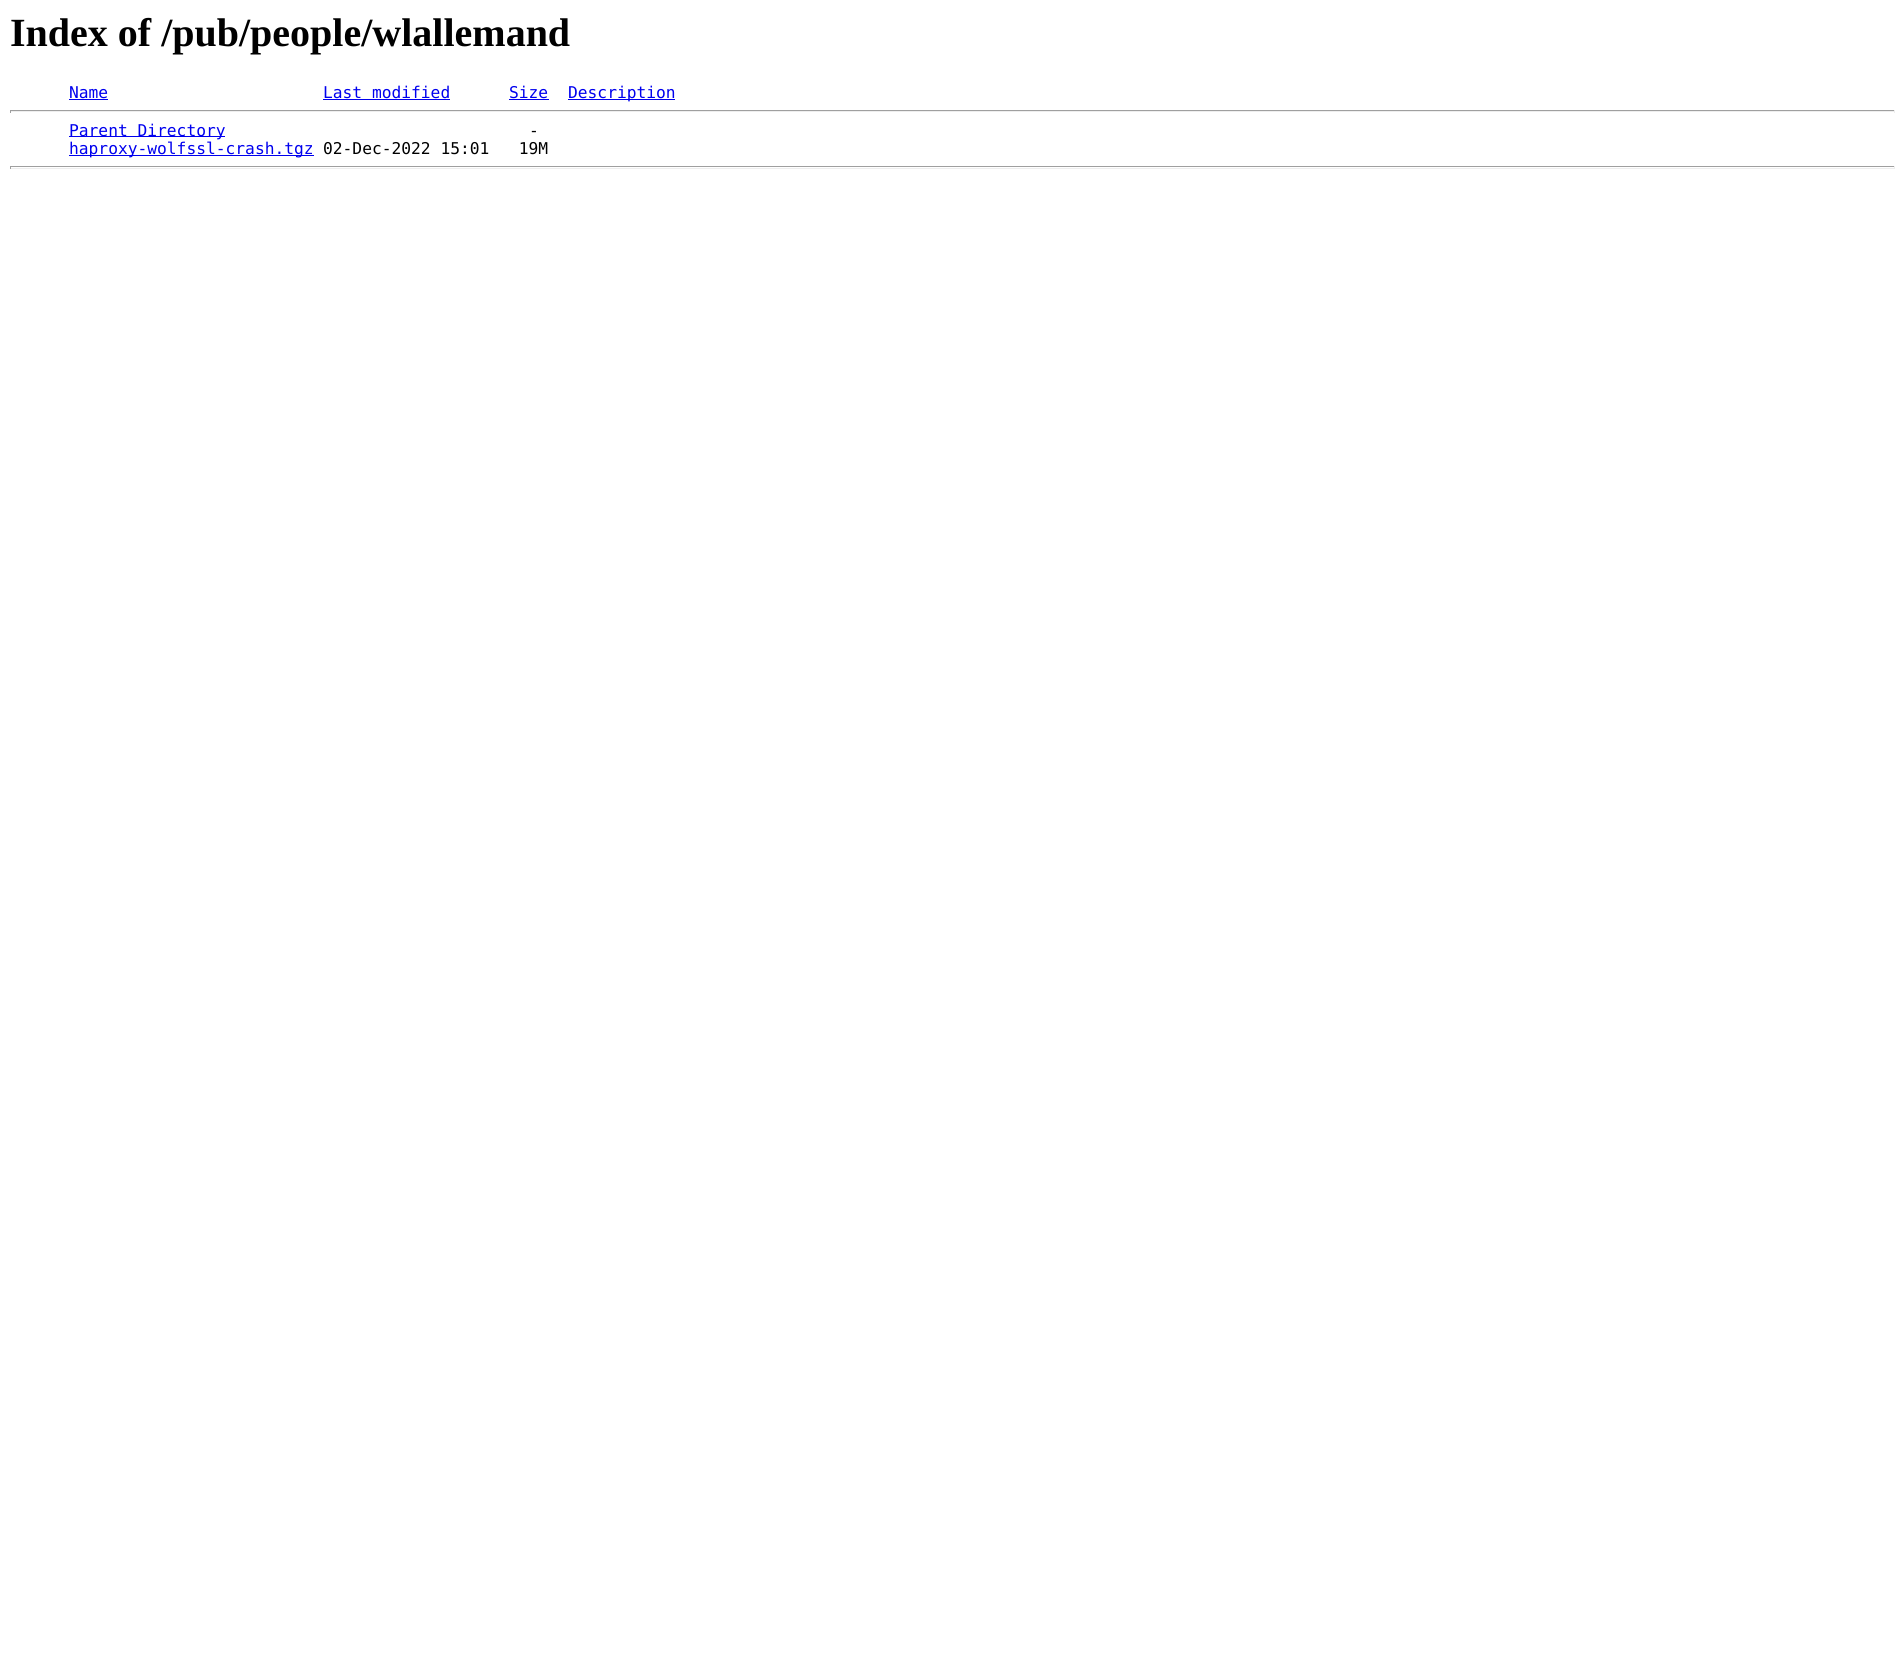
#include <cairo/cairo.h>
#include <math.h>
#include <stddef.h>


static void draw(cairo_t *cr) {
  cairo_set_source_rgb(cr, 1, 1, 1);
  cairo_paint(cr);
  cairo_set_source_rgb(cr, 0, 0, 238 / 255.0);
  cairo_rectangle(cr, 69, 99, 39, 1);
  cairo_fill(cr);
  cairo_rectangle(cr, 323, 99, 127, 1);
  cairo_fill(cr);
  cairo_rectangle(cr, 509, 99, 40, 1);
  cairo_fill(cr);
  cairo_rectangle(cr, 568, 99, 107, 1);
  cairo_fill(cr);
  cairo_set_source_rgb(cr, 159 / 255.0, 159 / 255.0, 159 / 255.0);
  cairo_rectangle(cr, 10, 110, 1885, 1);
  cairo_fill(cr);
  cairo_set_source_rgb(cr, 238 / 255.0, 238 / 255.0, 238 / 255.0);
  cairo_rectangle(cr, 1894, 110, 1, 3);
  cairo_fill(cr);
  cairo_rectangle(cr, 10, 111, 1885, 1);
  cairo_fill(cr);
  cairo_set_source_rgb(cr, 159 / 255.0, 159 / 255.0, 159 / 255.0);
  cairo_rectangle(cr, 10, 110, 1, 3);
  cairo_fill(cr);
  cairo_set_source_rgb(cr, 0, 0, 238 / 255.0);
  cairo_rectangle(cr, 69, 136, 156, 1);
  cairo_fill(cr);
  cairo_rectangle(cr, 69, 155, 245, 1);
  cairo_fill(cr);
  cairo_set_source_rgb(cr, 159 / 255.0, 159 / 255.0, 159 / 255.0);
  cairo_rectangle(cr, 10, 166, 1885, 1);
  cairo_fill(cr);
  cairo_set_source_rgb(cr, 238 / 255.0, 238 / 255.0, 238 / 255.0);
  cairo_rectangle(cr, 1894, 166, 1, 3);
  cairo_fill(cr);
  cairo_rectangle(cr, 10, 168, 1885, 1);
  cairo_fill(cr);
  cairo_set_source_rgb(cr, 159 / 255.0, 159 / 255.0, 159 / 255.0);
  cairo_rectangle(cr, 10, 166, 1, 3);
  cairo_fill(cr);
  cairo_select_font_face(cr, "Liberation Serif", CAIRO_FONT_SLANT_NORMAL, CAIRO_FONT_WEIGHT_BOLD);
  cairo_set_font_size(cr, 40);
  cairo_set_source_rgb(cr, 0, 0, 0);
  cairo_move_to(cr, 10, 46);
  cairo_show_text(cr, "Index of /pub/people/wlallemand");
  cairo_select_font_face(cr, "DejaVu Sans Mono", CAIRO_FONT_SLANT_NORMAL, CAIRO_FONT_WEIGHT_NORMAL);
  cairo_set_font_size(cr, 16.25);
  cairo_set_source_rgb(cr, 0, 0, 238 / 255.0);
  cairo_move_to(cr, 69, 98);
  cairo_show_text(cr, "Name");
  cairo_move_to(cr, 323, 98);
  cairo_show_text(cr, "Last modified");
  cairo_move_to(cr, 509, 98);
  cairo_show_text(cr, "Size");
  cairo_move_to(cr, 568, 98);
  cairo_show_text(cr, "Description");
  cairo_move_to(cr, 69, 136);
  cairo_show_text(cr, "Parent Directory");
  cairo_set_source_rgb(cr, 0, 0, 0);
  cairo_move_to(cr, 529, 136);
  cairo_show_text(cr, "-");
  cairo_set_source_rgb(cr, 0, 0, 238 / 255.0);
  cairo_move_to(cr, 69, 154);
  cairo_show_text(cr, "haproxy-wolfssl-crash.tgz");
  cairo_set_source_rgb(cr, 0, 0, 0);
  cairo_move_to(cr, 323, 154);
  cairo_show_text(cr, "02-Dec-2022 15:01   19M");
}

int main(void) {
  cairo_surface_t *surface = cairo_image_surface_create(CAIRO_FORMAT_RGB24, 1904, 1662);
  cairo_t *cr = cairo_create(surface);
  cairo_font_options_t *options = cairo_font_options_create();
  cairo_font_options_set_hint_metrics(options, CAIRO_HINT_METRICS_OFF);
  cairo_font_options_set_hint_style(options, CAIRO_HINT_STYLE_NONE);
  cairo_set_font_options(cr, options);
  cairo_set_miter_limit(cr, 4);
  draw(cr);
  cairo_surface_write_to_png(surface, "out.png");
  cairo_font_options_destroy(options);
  cairo_destroy(cr);
  cairo_surface_destroy(surface);
  return 0;
}
